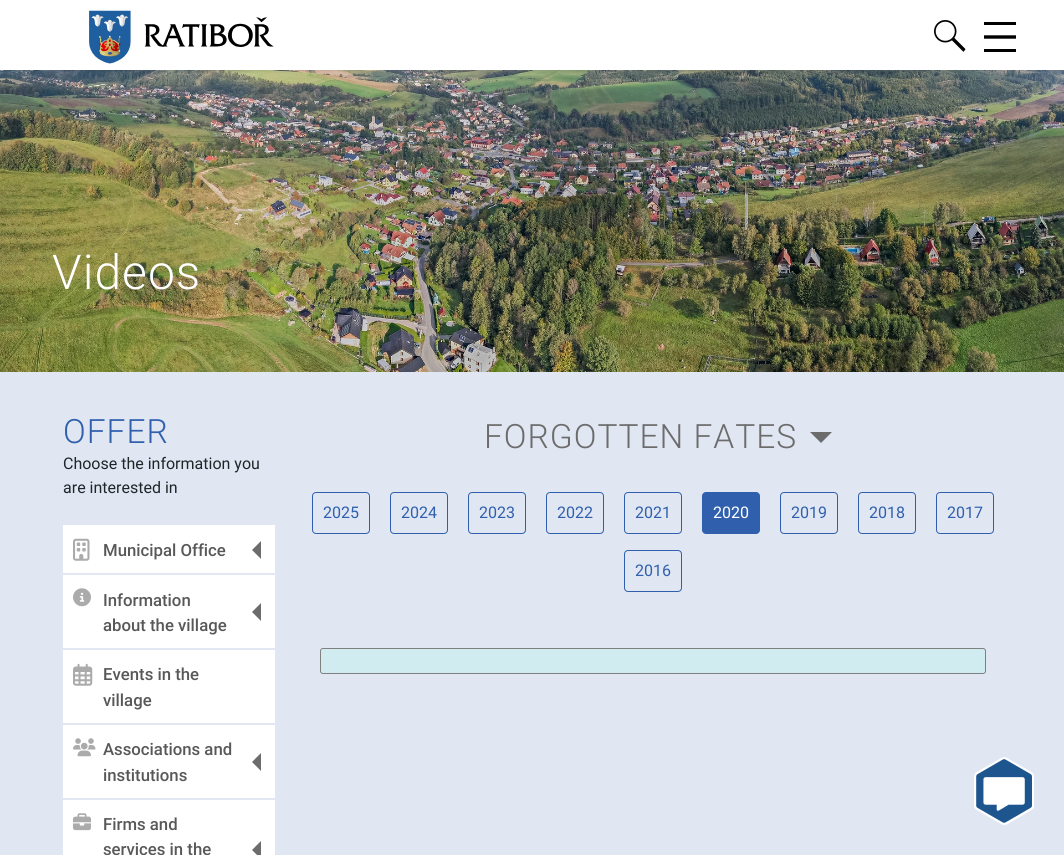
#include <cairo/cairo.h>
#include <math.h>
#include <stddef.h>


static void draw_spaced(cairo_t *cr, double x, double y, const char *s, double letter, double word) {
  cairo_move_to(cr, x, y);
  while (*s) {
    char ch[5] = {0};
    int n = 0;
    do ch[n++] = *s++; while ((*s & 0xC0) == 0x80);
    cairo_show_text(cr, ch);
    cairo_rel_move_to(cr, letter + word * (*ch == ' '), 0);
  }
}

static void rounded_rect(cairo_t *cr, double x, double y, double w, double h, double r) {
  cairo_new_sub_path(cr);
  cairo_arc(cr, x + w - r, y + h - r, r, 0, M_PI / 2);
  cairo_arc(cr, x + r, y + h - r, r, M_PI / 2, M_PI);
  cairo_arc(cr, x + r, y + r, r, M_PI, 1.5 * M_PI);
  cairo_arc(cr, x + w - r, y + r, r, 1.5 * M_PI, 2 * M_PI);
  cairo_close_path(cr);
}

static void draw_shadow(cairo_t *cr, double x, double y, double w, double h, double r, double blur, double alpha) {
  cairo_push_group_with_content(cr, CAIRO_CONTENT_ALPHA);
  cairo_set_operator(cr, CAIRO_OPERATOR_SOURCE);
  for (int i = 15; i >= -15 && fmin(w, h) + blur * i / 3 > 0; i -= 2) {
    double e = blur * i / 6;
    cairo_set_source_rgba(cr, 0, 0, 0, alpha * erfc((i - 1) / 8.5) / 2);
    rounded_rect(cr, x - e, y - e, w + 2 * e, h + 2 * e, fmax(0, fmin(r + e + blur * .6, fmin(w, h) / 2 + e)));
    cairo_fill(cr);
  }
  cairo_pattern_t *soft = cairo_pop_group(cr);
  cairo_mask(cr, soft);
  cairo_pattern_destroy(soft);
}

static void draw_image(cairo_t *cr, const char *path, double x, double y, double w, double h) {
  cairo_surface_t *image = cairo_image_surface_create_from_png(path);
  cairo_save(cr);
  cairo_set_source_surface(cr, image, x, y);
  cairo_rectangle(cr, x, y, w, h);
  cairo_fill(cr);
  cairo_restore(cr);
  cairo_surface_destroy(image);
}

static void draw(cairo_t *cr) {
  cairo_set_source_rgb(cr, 224 / 255.0, 231 / 255.0, 243 / 255.0);
  cairo_paint(cr);
  draw_image(cr, "images/3.png", 0, 70, 1064, 302);
  cairo_set_source_rgb(cr, 0, 0, 0);
  draw_shadow(cr, 0, 1, 1064, 70, 0, 1.5, 0.1);
  cairo_set_source_rgb(cr, 1, 1, 1);
  cairo_rectangle(cr, 0, 0, 1064, 70);
  cairo_fill(cr);
  draw_image(cr, "images/1.png", 89, 10, 185, 54);
  draw_image(cr, "images/2.png", 934, 20, 32, 32);
  cairo_set_source_rgb(cr, 0, 0, 0);
  cairo_rectangle(cr, 984, 22, 32, 3);
  cairo_fill(cr);
  cairo_new_path(cr);
  cairo_move_to(cr, 984, 37);
  cairo_line_to(cr, 1016, 37);
  cairo_set_line_width(cr, 3.4);
  cairo_stroke(cr);
  cairo_rectangle(cr, 984, 49, 32, 3);
  cairo_fill(cr);
  cairo_set_source_rgb(cr, 1, 1, 1);
  cairo_rectangle(cr, 63, 525, 212, 330);
  cairo_fill(cr);
  cairo_set_source_rgb(cr, 225 / 255.0, 232 / 255.0, 243 / 255.0);
  cairo_rectangle(cr, 63, 573, 212, 2);
  cairo_fill(cr);
  draw_image(cr, "images/4.png", 73, 538, 17, 23);
  cairo_set_source_rgb(cr, 108 / 255.0, 108 / 255.0, 108 / 255.0);
  cairo_new_path(cr);
  cairo_move_to(cr, 261, 541);
  cairo_line_to(cr, 261, 559);
  cairo_line_to(cr, 252, 550);
  cairo_close_path(cr);
  cairo_fill(cr);
  cairo_set_source_rgb(cr, 225 / 255.0, 232 / 255.0, 243 / 255.0);
  cairo_rectangle(cr, 63, 648, 212, 2);
  cairo_fill(cr);
  draw_image(cr, "images/5.png", 73, 588, 18, 19);
  cairo_set_source_rgb(cr, 108 / 255.0, 108 / 255.0, 108 / 255.0);
  cairo_new_path(cr);
  cairo_move_to(cr, 261, 603);
  cairo_line_to(cr, 261, 621);
  cairo_line_to(cr, 252, 612);
  cairo_close_path(cr);
  cairo_fill(cr);
  cairo_set_source_rgb(cr, 225 / 255.0, 232 / 255.0, 243 / 255.0);
  cairo_rectangle(cr, 63, 723, 212, 2);
  cairo_fill(cr);
  draw_image(cr, "images/6.png", 73, 663, 20, 23);
  cairo_rectangle(cr, 63, 798, 212, 2);
  cairo_fill(cr);
  draw_image(cr, "images/7.png", 73, 738, 23, 19);
  cairo_set_source_rgb(cr, 108 / 255.0, 108 / 255.0, 108 / 255.0);
  cairo_new_path(cr);
  cairo_move_to(cr, 261, 753);
  cairo_line_to(cr, 261, 771);
  cairo_line_to(cr, 252, 762);
  cairo_close_path(cr);
  cairo_fill(cr);
  draw_image(cr, "images/8.png", 73, 813, 18, 18);
  cairo_new_path(cr);
  cairo_move_to(cr, 261, 841);
  cairo_line_to(cr, 261, 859);
  cairo_line_to(cr, 252, 850);
  cairo_close_path(cr);
  cairo_fill(cr);
  cairo_new_path(cr);
  cairo_move_to(cr, 810, 432);
  cairo_line_to(cr, 832, 432);
  cairo_line_to(cr, 821, 443);
  cairo_close_path(cr);
  cairo_fill(cr);
  rounded_rect(cr, 312.5, 492.5, 57, 41, 3.5);
  cairo_set_source_rgb(cr, 48 / 255.0, 96 / 255.0, 173 / 255.0);
  cairo_set_line_width(cr, 1);
  cairo_stroke(cr);
  rounded_rect(cr, 390.5, 492.5, 57, 41, 3.5);
  cairo_stroke(cr);
  rounded_rect(cr, 468.5, 492.5, 57, 41, 3.5);
  cairo_stroke(cr);
  rounded_rect(cr, 546.5, 492.5, 57, 41, 3.5);
  cairo_stroke(cr);
  rounded_rect(cr, 624.5, 492.5, 57, 41, 3.5);
  cairo_stroke(cr);
  rounded_rect(cr, 702.5, 492.5, 57, 41, 3.5);
  cairo_fill_preserve(cr);
  cairo_stroke(cr);
  rounded_rect(cr, 780.5, 492.5, 57, 41, 3.5);
  cairo_stroke(cr);
  rounded_rect(cr, 858.5, 492.5, 57, 41, 3.5);
  cairo_stroke(cr);
  rounded_rect(cr, 936.5, 492.5, 57, 41, 3.5);
  cairo_stroke(cr);
  rounded_rect(cr, 624.5, 550.5, 57, 41, 3.5);
  cairo_stroke(cr);
  cairo_set_source_rgb(cr, 209 / 255.0, 236 / 255.0, 241 / 255.0);
  rounded_rect(cr, 320.5, 648.5, 665, 25, 2.5);
  cairo_fill_preserve(cr);
  cairo_set_source_rgb(cr, 128 / 255.0, 128 / 255.0, 128 / 255.0);
  cairo_stroke(cr);
  draw_image(cr, "images/9.png", 974, 757, 60, 68);
  cairo_select_font_face(cr, "Roboto Light", CAIRO_FONT_SLANT_NORMAL, CAIRO_FONT_WEIGHT_NORMAL);
  cairo_set_font_size(cr, 48);
  cairo_set_source_rgb(cr, 1, 1, 1);
  draw_spaced(cr, 52, 289, "Videos", 1, 0);
  cairo_set_font_size(cr, 33.5);
  cairo_set_source_rgb(cr, 48 / 255.0, 96 / 255.0, 173 / 255.0);
  draw_spaced(cr, 63, 443, "OFFER", 1, 0);
  cairo_select_font_face(cr, "Roboto", CAIRO_FONT_SLANT_NORMAL, CAIRO_FONT_WEIGHT_NORMAL);
  cairo_set_font_size(cr, 16);
  cairo_set_source_rgb(cr, 33 / 255.0, 37 / 255.0, 41 / 255.0);
  cairo_move_to(cr, 63, 469);
  cairo_show_text(cr, "Choose the information you");
  cairo_move_to(cr, 63, 493);
  cairo_show_text(cr, "are interested in");
  cairo_select_font_face(cr, "Roboto Medium", CAIRO_FONT_SLANT_NORMAL, CAIRO_FONT_WEIGHT_NORMAL);
  cairo_set_font_size(cr, 16.75);
  cairo_set_source_rgb(cr, 88 / 255.0, 88 / 255.0, 88 / 255.0);
  cairo_move_to(cr, 103, 556);
  cairo_show_text(cr, "Municipal Office");
  cairo_move_to(cr, 103, 606);
  cairo_show_text(cr, "Information");
  cairo_move_to(cr, 103, 631);
  cairo_show_text(cr, "about the village");
  cairo_move_to(cr, 103, 680);
  cairo_show_text(cr, "Events in the");
  cairo_move_to(cr, 103, 706);
  cairo_show_text(cr, "village");
  cairo_move_to(cr, 103, 755);
  cairo_show_text(cr, "Associations and");
  cairo_move_to(cr, 103, 781);
  cairo_show_text(cr, "institutions");
  cairo_move_to(cr, 103, 830);
  cairo_show_text(cr, "Firms and");
  cairo_move_to(cr, 103, 855);
  cairo_show_text(cr, "services in the");
  cairo_select_font_face(cr, "Roboto Light", CAIRO_FONT_SLANT_NORMAL, CAIRO_FONT_WEIGHT_NORMAL);
  cairo_set_font_size(cr, 33.5);
  cairo_set_source_rgb(cr, 108 / 255.0, 108 / 255.0, 108 / 255.0);
  draw_spaced(cr, 484, 448, "FORGOTTEN FATES", 1, 0);
  cairo_select_font_face(cr, "Roboto", CAIRO_FONT_SLANT_NORMAL, CAIRO_FONT_WEIGHT_NORMAL);
  cairo_set_font_size(cr, 16);
  cairo_set_source_rgb(cr, 48 / 255.0, 96 / 255.0, 173 / 255.0);
  cairo_move_to(cr, 323, 518);
  cairo_show_text(cr, "2025");
  cairo_move_to(cr, 401, 518);
  cairo_show_text(cr, "2024");
  cairo_move_to(cr, 479, 518);
  cairo_show_text(cr, "2023");
  cairo_move_to(cr, 557, 518);
  cairo_show_text(cr, "2022");
  cairo_move_to(cr, 635, 518);
  cairo_show_text(cr, "2021");
  cairo_set_source_rgb(cr, 1, 1, 1);
  cairo_move_to(cr, 713, 518);
  cairo_show_text(cr, "2020");
  cairo_set_source_rgb(cr, 48 / 255.0, 96 / 255.0, 173 / 255.0);
  cairo_move_to(cr, 791, 518);
  cairo_show_text(cr, "2019");
  cairo_move_to(cr, 869, 518);
  cairo_show_text(cr, "2018");
  cairo_move_to(cr, 947, 518);
  cairo_show_text(cr, "2017");
  cairo_move_to(cr, 635, 576);
  cairo_show_text(cr, "2016");
}

int main(void) {
  cairo_surface_t *surface = cairo_image_surface_create(CAIRO_FORMAT_RGB24, 1064, 855);
  cairo_t *cr = cairo_create(surface);
  cairo_font_options_t *options = cairo_font_options_create();
  cairo_font_options_set_hint_metrics(options, CAIRO_HINT_METRICS_OFF);
  cairo_font_options_set_hint_style(options, CAIRO_HINT_STYLE_NONE);
  cairo_set_font_options(cr, options);
  cairo_set_miter_limit(cr, 4);
  draw(cr);
  cairo_surface_write_to_png(surface, "out.png");
  cairo_font_options_destroy(options);
  cairo_destroy(cr);
  cairo_surface_destroy(surface);
  return 0;
}
